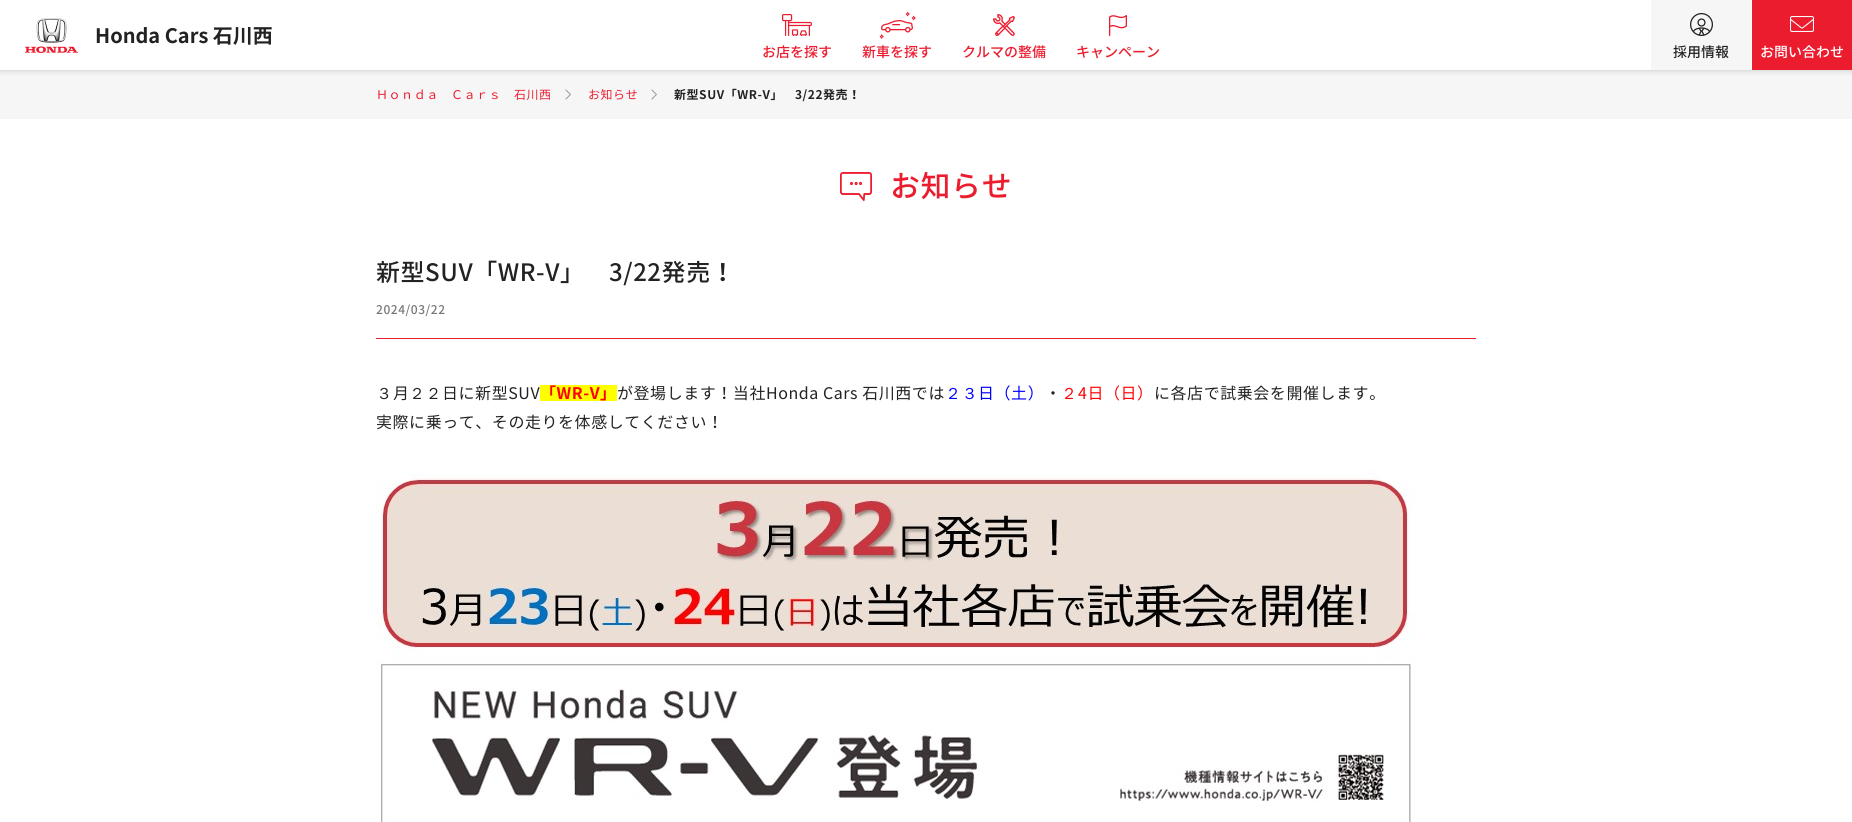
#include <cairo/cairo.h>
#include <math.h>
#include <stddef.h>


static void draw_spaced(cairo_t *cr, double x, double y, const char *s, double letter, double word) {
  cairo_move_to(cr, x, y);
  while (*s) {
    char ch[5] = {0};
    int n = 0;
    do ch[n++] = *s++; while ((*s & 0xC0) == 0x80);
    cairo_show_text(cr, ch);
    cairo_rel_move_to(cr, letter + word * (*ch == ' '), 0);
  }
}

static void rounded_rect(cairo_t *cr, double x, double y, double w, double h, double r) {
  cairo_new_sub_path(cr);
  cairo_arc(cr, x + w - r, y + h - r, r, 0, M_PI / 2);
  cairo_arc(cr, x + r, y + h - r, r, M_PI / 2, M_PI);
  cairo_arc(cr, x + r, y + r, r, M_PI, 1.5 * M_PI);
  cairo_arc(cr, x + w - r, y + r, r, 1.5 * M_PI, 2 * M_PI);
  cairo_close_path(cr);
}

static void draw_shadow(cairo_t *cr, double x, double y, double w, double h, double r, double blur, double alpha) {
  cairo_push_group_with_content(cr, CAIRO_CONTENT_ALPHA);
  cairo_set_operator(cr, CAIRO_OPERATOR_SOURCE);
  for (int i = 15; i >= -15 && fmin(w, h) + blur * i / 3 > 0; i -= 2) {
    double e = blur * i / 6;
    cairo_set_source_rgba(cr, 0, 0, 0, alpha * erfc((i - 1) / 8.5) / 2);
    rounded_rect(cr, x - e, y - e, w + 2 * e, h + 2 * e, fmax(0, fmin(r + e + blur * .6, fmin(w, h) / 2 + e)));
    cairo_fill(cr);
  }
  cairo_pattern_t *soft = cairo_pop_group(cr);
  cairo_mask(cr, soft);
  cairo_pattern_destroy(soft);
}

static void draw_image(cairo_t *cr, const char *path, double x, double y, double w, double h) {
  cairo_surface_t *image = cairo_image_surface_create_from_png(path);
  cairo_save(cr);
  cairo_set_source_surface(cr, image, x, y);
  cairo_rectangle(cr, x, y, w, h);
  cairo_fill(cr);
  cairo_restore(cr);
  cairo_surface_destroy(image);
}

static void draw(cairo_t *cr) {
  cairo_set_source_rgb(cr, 1, 1, 1);
  cairo_paint(cr);
  cairo_set_source_rgb(cr, 246 / 255.0, 246 / 255.0, 246 / 255.0);
  cairo_rectangle(cr, 0, 70, 1852, 49);
  cairo_fill(cr);
  cairo_save(cr);
  cairo_rectangle(cr, 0, 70, 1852, 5);
  cairo_clip(cr);
  cairo_set_source_rgb(cr, 0, 0, 0);
  draw_shadow(cr, 0, 0, 1852, 70, 0, 4, 0.2);
  cairo_restore(cr);
  draw_image(cr, "images/1.png", 25, 18, 53, 35);
  draw_image(cr, "images/2.png", 782, 14, 30, 22);
  draw_image(cr, "images/3.png", 879, 11, 37, 28);
  draw_image(cr, "images/4.png", 993, 14, 22, 22);
  draw_image(cr, "images/5.png", 1109, 15, 18, 21);
  cairo_rectangle(cr, 1651, 0, 100, 70);
  cairo_fill(cr);
  draw_image(cr, "images/6.png", 1690, 13, 23, 23);
  cairo_set_source_rgb(cr, 236 / 255.0, 28 / 255.0, 47 / 255.0);
  cairo_rectangle(cr, 1752, 0, 100, 70);
  cairo_fill(cr);
  draw_image(cr, "images/7.png", 1790, 16, 24, 16);
  draw_image(cr, "images/8.png", 565, 89, 6, 11);
  draw_image(cr, "images/8.png", 651, 89, 6, 11);
  draw_image(cr, "images/9.png", 840, 172, 32, 29);
  cairo_rectangle(cr, 376, 338, 1100, 1);
  cairo_fill(cr);
  cairo_set_source_rgb(cr, 1, 1, 0);
  cairo_rectangle(cr, 540, 385, 77, 16);
  cairo_fill(cr);
  draw_image(cr, "images/10.png", 376, 470, 1040, 352);
  cairo_select_font_face(cr, "Noto Sans CJK JP", CAIRO_FONT_SLANT_NORMAL, CAIRO_FONT_WEIGHT_BOLD);
  cairo_set_font_size(cr, 20);
  cairo_set_source_rgb(cr, 34 / 255.0, 34 / 255.0, 34 / 255.0);
  cairo_move_to(cr, 95, 43);
  cairo_show_text(cr, "Honda Cars 石川西");
  cairo_select_font_face(cr, "Noto Sans CJK JP Medium", CAIRO_FONT_SLANT_NORMAL, CAIRO_FONT_WEIGHT_NORMAL);
  cairo_set_font_size(cr, 14);
  cairo_set_source_rgb(cr, 236 / 255.0, 28 / 255.0, 47 / 255.0);
  cairo_move_to(cr, 762, 57);
  cairo_show_text(cr, "お店を探す");
  cairo_move_to(cr, 862, 57);
  cairo_show_text(cr, "新車を探す");
  cairo_move_to(cr, 962, 57);
  cairo_show_text(cr, "クルマの整備");
  cairo_move_to(cr, 1076, 57);
  cairo_show_text(cr, "キャンペーン");
  cairo_set_source_rgb(cr, 34 / 255.0, 34 / 255.0, 34 / 255.0);
  cairo_move_to(cr, 1673, 57);
  cairo_show_text(cr, "採用情報");
  cairo_set_source_rgb(cr, 1, 1, 1);
  cairo_move_to(cr, 1760, 57);
  cairo_show_text(cr, "お問い合わせ");
  cairo_select_font_face(cr, "Noto Sans CJK JP", CAIRO_FONT_SLANT_NORMAL, CAIRO_FONT_WEIGHT_NORMAL);
  cairo_set_font_size(cr, 12);
  cairo_set_source_rgb(cr, 236 / 255.0, 28 / 255.0, 47 / 255.0);
  draw_spaced(cr, 376, 99, "Ｈｏｎｄａ", 0.55, 0);
  draw_spaced(cr, 451, 99, "Ｃａｒｓ", 0.55, 0);
  draw_spaced(cr, 514, 99, "石川西", 0.55, 0);
  draw_spaced(cr, 588, 99, "お知らせ", 0.55, 0);
  cairo_select_font_face(cr, "Noto Sans CJK JP", CAIRO_FONT_SLANT_NORMAL, CAIRO_FONT_WEIGHT_BOLD);
  cairo_set_source_rgb(cr, 34 / 255.0, 34 / 255.0, 34 / 255.0);
  draw_spaced(cr, 674, 99, "新型SUV「WR-V」", 0.55, 0);
  draw_spaced(cr, 795, 99, "3/22発売！", 0.55, 0);
  cairo_select_font_face(cr, "Noto Sans CJK JP Medium", CAIRO_FONT_SLANT_NORMAL, CAIRO_FONT_WEIGHT_NORMAL);
  cairo_set_font_size(cr, 30);
  cairo_set_source_rgb(cr, 236 / 255.0, 28 / 255.0, 47 / 255.0);
  draw_spaced(cr, 890, 197, "お知らせ", 0.55, 0);
  cairo_set_font_size(cr, 24);
  cairo_set_source_rgb(cr, 34 / 255.0, 34 / 255.0, 34 / 255.0);
  draw_spaced(cr, 376, 281, "新型SUV「WR-V」", 0.55, 0);
  draw_spaced(cr, 609, 281, "3/22発売！", 0.55, 0);
  cairo_set_font_size(cr, 12);
  cairo_set_source_rgb(cr, 119 / 255.0, 119 / 255.0, 119 / 255.0);
  draw_spaced(cr, 376, 314, "2024/03/22", 0.55, 0);
  cairo_select_font_face(cr, "WenQuanYi Zen Hei Medium", CAIRO_FONT_SLANT_NORMAL, CAIRO_FONT_WEIGHT_NORMAL);
  cairo_set_font_size(cr, 16);
  cairo_set_source_rgb(cr, 34 / 255.0, 34 / 255.0, 34 / 255.0);
  draw_spaced(cr, 376, 399, "３", 0.55, 0);
  cairo_select_font_face(cr, "Noto Sans CJK JP", CAIRO_FONT_SLANT_NORMAL, CAIRO_FONT_WEIGHT_NORMAL);
  draw_spaced(cr, 393, 399, "月", 0.55, 0);
  cairo_select_font_face(cr, "WenQuanYi Zen Hei Medium", CAIRO_FONT_SLANT_NORMAL, CAIRO_FONT_WEIGHT_NORMAL);
  draw_spaced(cr, 409, 399, "２２", 0.55, 0);
  cairo_select_font_face(cr, "Noto Sans CJK JP", CAIRO_FONT_SLANT_NORMAL, CAIRO_FONT_WEIGHT_NORMAL);
  draw_spaced(cr, 442, 399, "日に新型SUV", 0.55, 0);
  cairo_select_font_face(cr, "Noto Sans CJK JP", CAIRO_FONT_SLANT_NORMAL, CAIRO_FONT_WEIGHT_BOLD);
  cairo_set_source_rgb(cr, 1, 0, 0);
  draw_spaced(cr, 540, 399, "「WR-V」", 0.55, 0);
  cairo_select_font_face(cr, "Noto Sans CJK JP", CAIRO_FONT_SLANT_NORMAL, CAIRO_FONT_WEIGHT_NORMAL);
  cairo_set_source_rgb(cr, 34 / 255.0, 34 / 255.0, 34 / 255.0);
  draw_spaced(cr, 617, 399, "が登場します！当社Honda Cars 石川西では", 0.55, 0);
  cairo_select_font_face(cr, "WenQuanYi Zen Hei Medium", CAIRO_FONT_SLANT_NORMAL, CAIRO_FONT_WEIGHT_NORMAL);
  cairo_set_source_rgb(cr, 0, 0, 1);
  draw_spaced(cr, 945, 399, "２３", 0.55, 0);
  cairo_select_font_face(cr, "Noto Sans CJK JP", CAIRO_FONT_SLANT_NORMAL, CAIRO_FONT_WEIGHT_NORMAL);
  draw_spaced(cr, 978, 399, "日（土）", 0.55, 0);
  cairo_set_source_rgb(cr, 34 / 255.0, 34 / 255.0, 34 / 255.0);
  draw_spaced(cr, 1045, 399, "・", 0.55, 0);
  cairo_select_font_face(cr, "WenQuanYi Zen Hei Medium", CAIRO_FONT_SLANT_NORMAL, CAIRO_FONT_WEIGHT_NORMAL);
  cairo_set_source_rgb(cr, 1, 0, 0);
  draw_spaced(cr, 1061, 399, "２", 0.55, 0);
  cairo_select_font_face(cr, "Noto Sans CJK JP", CAIRO_FONT_SLANT_NORMAL, CAIRO_FONT_WEIGHT_NORMAL);
  draw_spaced(cr, 1078, 399, "4日（日）", 0.55, 0);
  cairo_set_source_rgb(cr, 34 / 255.0, 34 / 255.0, 34 / 255.0);
  draw_spaced(cr, 1154, 399, "に各店で試乗会を開催します。", 0.55, 0);
  draw_spaced(cr, 376, 428, "実際に乗って、その走りを体感してください！", 0.55, 0);
}

int main(void) {
  cairo_surface_t *surface = cairo_image_surface_create(CAIRO_FORMAT_RGB24, 1852, 822);
  cairo_t *cr = cairo_create(surface);
  cairo_font_options_t *options = cairo_font_options_create();
  cairo_font_options_set_hint_metrics(options, CAIRO_HINT_METRICS_OFF);
  cairo_font_options_set_hint_style(options, CAIRO_HINT_STYLE_NONE);
  cairo_set_font_options(cr, options);
  cairo_set_miter_limit(cr, 4);
  draw(cr);
  cairo_surface_write_to_png(surface, "out.png");
  cairo_font_options_destroy(options);
  cairo_destroy(cr);
  cairo_surface_destroy(surface);
  return 0;
}
